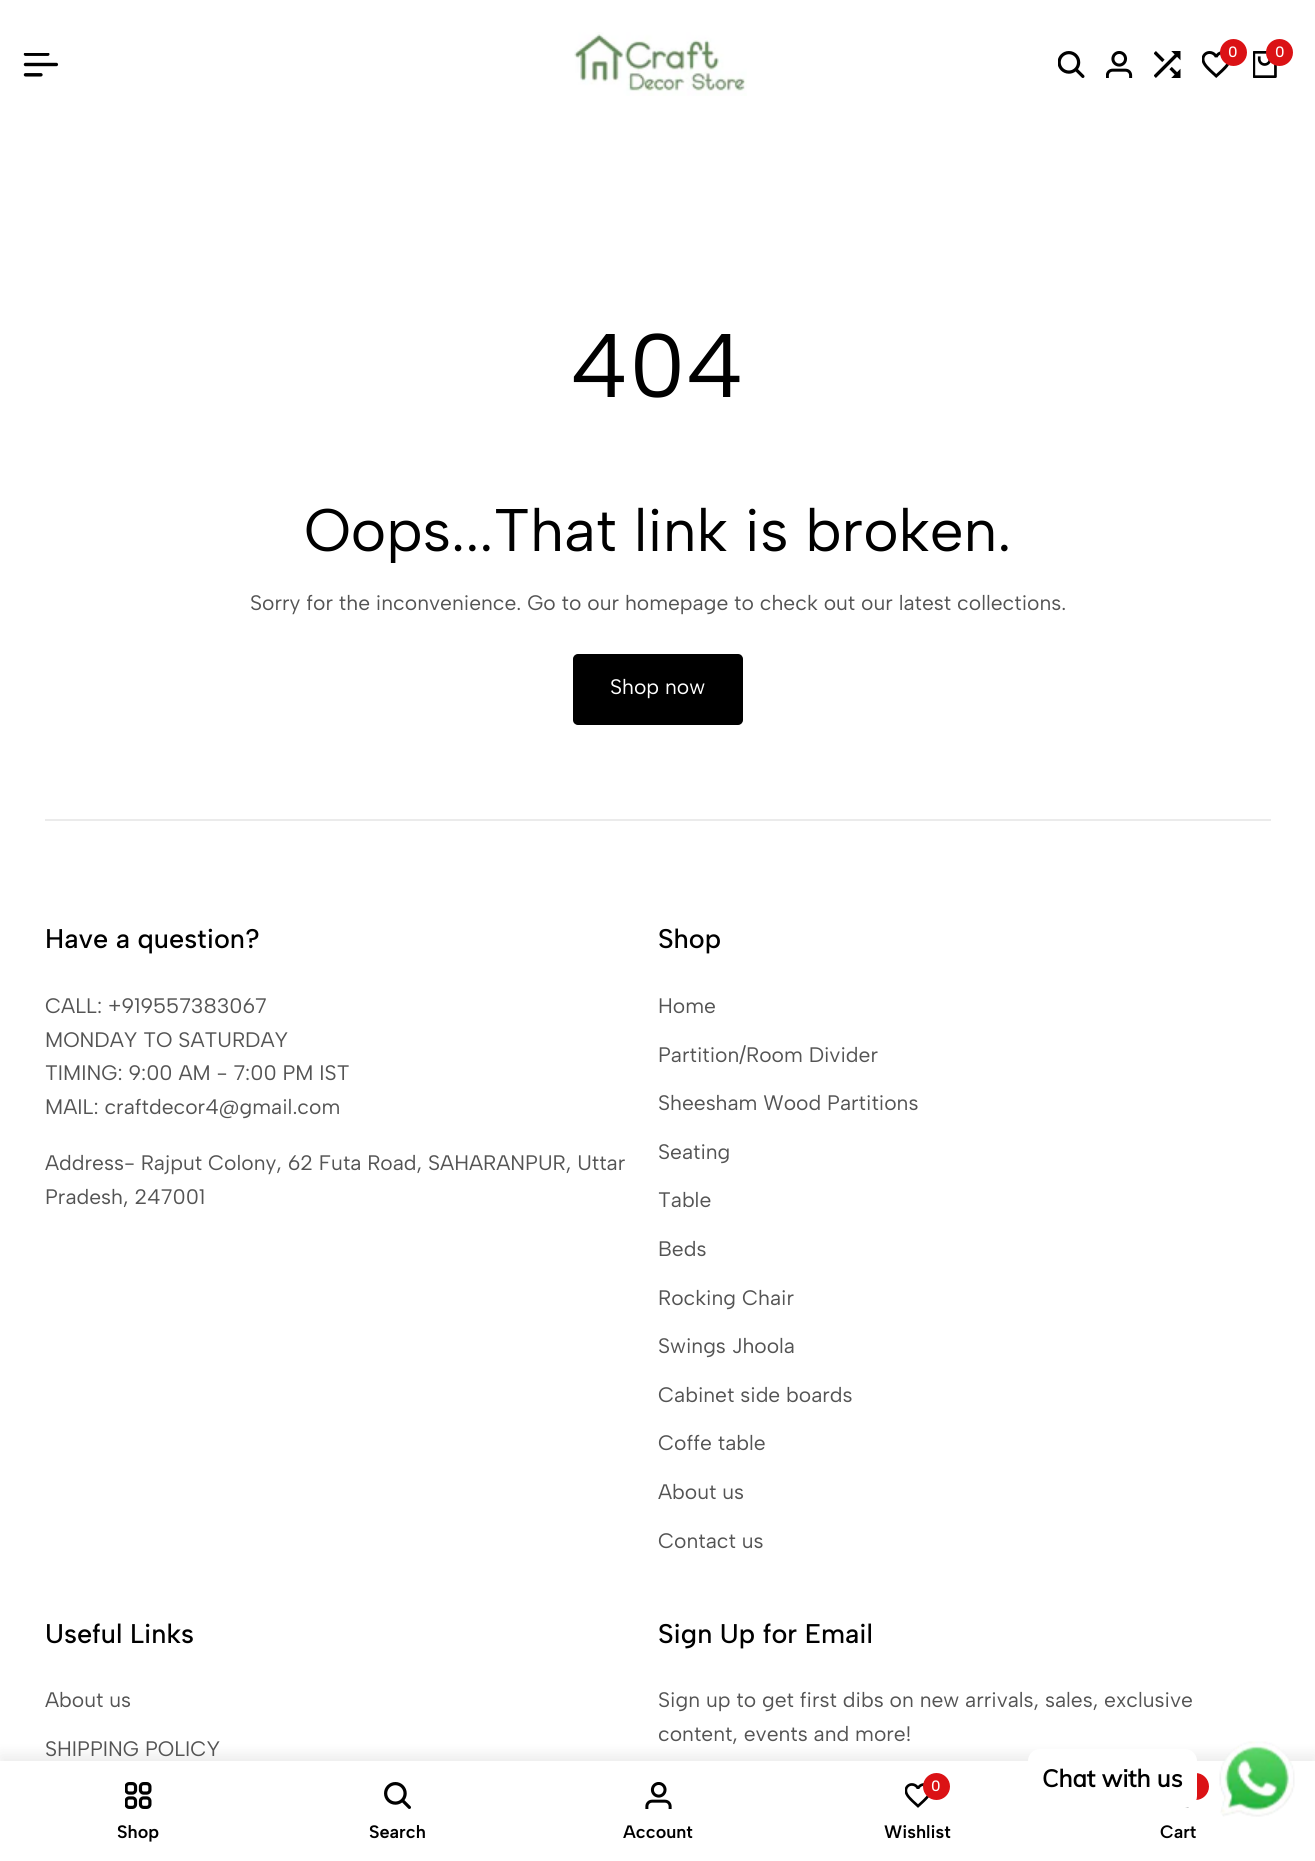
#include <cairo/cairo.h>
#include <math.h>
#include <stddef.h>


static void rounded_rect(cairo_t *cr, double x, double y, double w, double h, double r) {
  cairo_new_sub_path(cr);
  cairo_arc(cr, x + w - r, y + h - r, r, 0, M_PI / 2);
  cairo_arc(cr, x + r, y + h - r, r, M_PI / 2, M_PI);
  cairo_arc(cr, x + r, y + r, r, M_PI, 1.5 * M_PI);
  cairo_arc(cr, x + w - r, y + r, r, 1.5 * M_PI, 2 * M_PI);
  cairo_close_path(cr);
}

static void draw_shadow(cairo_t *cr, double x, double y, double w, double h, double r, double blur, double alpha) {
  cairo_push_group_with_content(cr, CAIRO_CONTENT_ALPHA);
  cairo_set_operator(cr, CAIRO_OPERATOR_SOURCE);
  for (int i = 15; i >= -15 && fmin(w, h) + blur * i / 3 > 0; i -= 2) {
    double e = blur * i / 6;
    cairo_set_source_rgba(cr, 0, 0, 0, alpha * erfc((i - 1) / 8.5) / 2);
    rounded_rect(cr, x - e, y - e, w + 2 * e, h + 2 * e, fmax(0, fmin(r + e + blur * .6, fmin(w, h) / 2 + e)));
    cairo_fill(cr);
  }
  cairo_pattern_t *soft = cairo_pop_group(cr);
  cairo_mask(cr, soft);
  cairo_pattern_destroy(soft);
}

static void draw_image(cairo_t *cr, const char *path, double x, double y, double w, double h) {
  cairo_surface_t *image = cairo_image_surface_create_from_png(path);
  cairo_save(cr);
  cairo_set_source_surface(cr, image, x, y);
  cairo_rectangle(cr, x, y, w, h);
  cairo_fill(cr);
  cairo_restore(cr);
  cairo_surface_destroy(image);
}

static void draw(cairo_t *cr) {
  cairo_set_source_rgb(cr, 1, 1, 1);
  cairo_paint(cr);
  draw_image(cr, "images/1.png", 23, 53, 36, 24);
  draw_image(cr, "images/2.png", 574, 32, 173, 64);
  draw_image(cr, "images/3.png", 1058, 51, 27, 27);
  draw_image(cr, "images/4.png", 1106, 51, 27, 27);
  draw_image(cr, "images/5.png", 1154, 51, 27, 27);
  draw_image(cr, "images/6.png", 1202, 51, 27, 27);
  cairo_set_source_rgb(cr, 219 / 255.0, 18 / 255.0, 21 / 255.0);
  cairo_arc(cr, 1233.5, 52.5, 13.5, 0, 2 * M_PI);
  cairo_fill(cr);
  draw_image(cr, "images/7.png", 1253, 51, 24, 27);
  cairo_arc(cr, 1279.5, 52.5, 13.5, 0, 2 * M_PI);
  cairo_fill(cr);
  cairo_set_source_rgb(cr, 0, 0, 0);
  rounded_rect(cr, 574, 655, 168, 69, 4);
  cairo_fill_preserve(cr);
  cairo_stroke(cr);
  cairo_set_source_rgb(cr, 235 / 255.0, 235 / 255.0, 235 / 255.0);
  cairo_rectangle(cr, 45, 819, 1226, 2);
  cairo_fill(cr);
  cairo_set_source_rgb(cr, 0, 0, 0);
  draw_shadow(cr, 0, 1755, 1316, 101, 0, 7.5, 0.08);
  cairo_set_source_rgb(cr, 1, 1, 1);
  cairo_rectangle(cr, 0, 1761, 1315, 100);
  cairo_fill(cr);
  draw_image(cr, "images/8.png", 1219, 1741, 76, 76);
  cairo_set_source_rgb(cr, 219 / 255.0, 18 / 255.0, 21 / 255.0);
  cairo_arc(cr, 1195.5, 1786.5, 13.5, 0, 2 * M_PI);
  cairo_fill(cr);
  draw_image(cr, "images/13.png", 1185, 1807, 4, 1);
  cairo_set_source_rgb(cr, 1, 1, 1);
  rounded_rect(cr, 1028, 1749, 169, 59, 12);
  cairo_fill(cr);
  draw_image(cr, "images/9.png", 125, 1782, 27, 27);
  draw_image(cr, "images/10.png", 384, 1782, 27, 27);
  draw_image(cr, "images/11.png", 645, 1782, 27, 27);
  draw_image(cr, "images/12.png", 905, 1783, 24, 25);
  cairo_set_source_rgb(cr, 219 / 255.0, 18 / 255.0, 21 / 255.0);
  cairo_arc(cr, 936.5, 1786.5, 13.5, 0, 2 * M_PI);
  cairo_fill(cr);
  cairo_select_font_face(cr, "Albert Sans Medium", CAIRO_FONT_SLANT_NORMAL, CAIRO_FONT_WEIGHT_NORMAL);
  cairo_set_font_size(cr, 15);
  cairo_set_source_rgb(cr, 1, 1, 1);
  cairo_move_to(cr, 1228, 57);
  cairo_show_text(cr, "0");
  cairo_move_to(cr, 1275, 57);
  cairo_show_text(cr, "0");
  cairo_select_font_face(cr, "Albert Sans", CAIRO_FONT_SLANT_NORMAL, CAIRO_FONT_WEIGHT_NORMAL);
  cairo_set_font_size(cr, 90);
  cairo_set_source_rgb(cr, 0, 0, 0);
  cairo_move_to(cr, 570, 397);
  cairo_show_text(cr, "404");
  cairo_set_font_size(cr, 60);
  cairo_move_to(cr, 304, 551);
  cairo_show_text(cr, "Oops...That link is broken.");
  cairo_set_font_size(cr, 21);
  cairo_set_source_rgb(cr, 84 / 255.0, 84 / 255.0, 84 / 255.0);
  cairo_move_to(cr, 250, 610);
  cairo_show_text(cr, "Sorry for the inconvenience. Go to our homepage to check out our latest collections.");
  cairo_set_source_rgb(cr, 1, 1, 1);
  cairo_move_to(cr, 610, 694);
  cairo_show_text(cr, "Shop now");
  cairo_select_font_face(cr, "Albert Sans Medium", CAIRO_FONT_SLANT_NORMAL, CAIRO_FONT_WEIGHT_NORMAL);
  cairo_set_font_size(cr, 27);
  cairo_set_source_rgb(cr, 0, 0, 0);
  cairo_move_to(cr, 45, 948);
  cairo_show_text(cr, "Have a question?");
  cairo_select_font_face(cr, "Albert Sans", CAIRO_FONT_SLANT_NORMAL, CAIRO_FONT_WEIGHT_NORMAL);
  cairo_set_font_size(cr, 21);
  cairo_set_source_rgb(cr, 84 / 255.0, 84 / 255.0, 84 / 255.0);
  cairo_move_to(cr, 45, 1013);
  cairo_show_text(cr, "CALL: +919557383067");
  cairo_move_to(cr, 45, 1047);
  cairo_show_text(cr, "MONDAY TO SATURDAY");
  cairo_move_to(cr, 45, 1080);
  cairo_show_text(cr, "TIMING: 9:00 AM - 7:00 PM IST");
  cairo_move_to(cr, 45, 1114);
  cairo_show_text(cr, "MAIL: craftdecor4@gmail.com");
  cairo_move_to(cr, 45, 1170);
  cairo_show_text(cr, "Address- Rajput Colony, 62 Futa Road, SAHARANPUR, Uttar");
  cairo_move_to(cr, 45, 1204);
  cairo_show_text(cr, "Pradesh, 247001");
  cairo_select_font_face(cr, "Albert Sans Medium", CAIRO_FONT_SLANT_NORMAL, CAIRO_FONT_WEIGHT_NORMAL);
  cairo_set_font_size(cr, 27);
  cairo_set_source_rgb(cr, 0, 0, 0);
  cairo_move_to(cr, 658, 948);
  cairo_show_text(cr, "Shop");
  cairo_select_font_face(cr, "Albert Sans", CAIRO_FONT_SLANT_NORMAL, CAIRO_FONT_WEIGHT_NORMAL);
  cairo_set_font_size(cr, 21);
  cairo_set_source_rgb(cr, 84 / 255.0, 84 / 255.0, 84 / 255.0);
  cairo_move_to(cr, 658, 1013);
  cairo_show_text(cr, "Home");
  cairo_move_to(cr, 658, 1062);
  cairo_show_text(cr, "Partition/Room Divider");
  cairo_move_to(cr, 658, 1110);
  cairo_show_text(cr, "Sheesham Wood Partitions");
  cairo_move_to(cr, 658, 1159);
  cairo_show_text(cr, "Seating");
  cairo_move_to(cr, 658, 1207);
  cairo_show_text(cr, "Table");
  cairo_move_to(cr, 658, 1256);
  cairo_show_text(cr, "Beds");
  cairo_move_to(cr, 658, 1305);
  cairo_show_text(cr, "Rocking Chair");
  cairo_move_to(cr, 658, 1353);
  cairo_show_text(cr, "Swings Jhoola");
  cairo_move_to(cr, 658, 1402);
  cairo_show_text(cr, "Cabinet side boards");
  cairo_move_to(cr, 658, 1450);
  cairo_show_text(cr, "Coffe table");
  cairo_move_to(cr, 658, 1499);
  cairo_show_text(cr, "About us");
  cairo_move_to(cr, 658, 1548);
  cairo_show_text(cr, "Contact us");
  cairo_select_font_face(cr, "Albert Sans Medium", CAIRO_FONT_SLANT_NORMAL, CAIRO_FONT_WEIGHT_NORMAL);
  cairo_set_font_size(cr, 27);
  cairo_set_source_rgb(cr, 0, 0, 0);
  cairo_move_to(cr, 45, 1643);
  cairo_show_text(cr, "Useful Links");
  cairo_select_font_face(cr, "Albert Sans", CAIRO_FONT_SLANT_NORMAL, CAIRO_FONT_WEIGHT_NORMAL);
  cairo_set_font_size(cr, 21);
  cairo_set_source_rgb(cr, 84 / 255.0, 84 / 255.0, 84 / 255.0);
  cairo_move_to(cr, 45, 1707);
  cairo_show_text(cr, "About us");
  cairo_move_to(cr, 45, 1756);
  cairo_show_text(cr, "SHIPPING POLICY");
  cairo_select_font_face(cr, "Albert Sans Medium", CAIRO_FONT_SLANT_NORMAL, CAIRO_FONT_WEIGHT_NORMAL);
  cairo_set_font_size(cr, 27);
  cairo_set_source_rgb(cr, 0, 0, 0);
  cairo_move_to(cr, 658, 1643);
  cairo_show_text(cr, "Sign Up for Email");
  cairo_select_font_face(cr, "Albert Sans", CAIRO_FONT_SLANT_NORMAL, CAIRO_FONT_WEIGHT_NORMAL);
  cairo_set_font_size(cr, 21);
  cairo_set_source_rgb(cr, 84 / 255.0, 84 / 255.0, 84 / 255.0);
  cairo_move_to(cr, 658, 1707);
  cairo_show_text(cr, "Sign up to get first dibs on new arrivals, sales, exclusive");
  cairo_move_to(cr, 658, 1741);
  cairo_show_text(cr, "content, events and more!");
  cairo_select_font_face(cr, "Muli", CAIRO_FONT_SLANT_NORMAL, CAIRO_FONT_WEIGHT_BOLD);
  cairo_set_font_size(cr, 24);
  cairo_set_source_rgb(cr, 0, 0, 0);
  cairo_move_to(cr, 1042, 1787);
  cairo_show_text(cr, "Chat with us");
  cairo_select_font_face(cr, "Albert Sans SemiBold", CAIRO_FONT_SLANT_NORMAL, CAIRO_FONT_WEIGHT_NORMAL);
  cairo_set_font_size(cr, 18);
  cairo_move_to(cr, 117, 1838);
  cairo_show_text(cr, "Shop");
  cairo_move_to(cr, 369, 1838);
  cairo_show_text(cr, "Search");
  cairo_move_to(cr, 623, 1838);
  cairo_show_text(cr, "Account");
  cairo_select_font_face(cr, "Albert Sans Medium", CAIRO_FONT_SLANT_NORMAL, CAIRO_FONT_WEIGHT_NORMAL);
  cairo_set_font_size(cr, 15);
  cairo_set_source_rgb(cr, 1, 1, 1);
  cairo_move_to(cr, 931, 1791);
  cairo_show_text(cr, "0");
  cairo_select_font_face(cr, "Albert Sans SemiBold", CAIRO_FONT_SLANT_NORMAL, CAIRO_FONT_WEIGHT_NORMAL);
  cairo_set_font_size(cr, 18);
  cairo_set_source_rgb(cr, 0, 0, 0);
  cairo_move_to(cr, 884, 1838);
  cairo_show_text(cr, "Wishlist");
  cairo_move_to(cr, 1160, 1838);
  cairo_show_text(cr, "Cart");
}

int main(void) {
  cairo_surface_t *surface = cairo_image_surface_create(CAIRO_FORMAT_RGB24, 1315, 1861);
  cairo_t *cr = cairo_create(surface);
  cairo_font_options_t *options = cairo_font_options_create();
  cairo_font_options_set_hint_metrics(options, CAIRO_HINT_METRICS_OFF);
  cairo_font_options_set_hint_style(options, CAIRO_HINT_STYLE_NONE);
  cairo_set_font_options(cr, options);
  cairo_set_miter_limit(cr, 4);
  draw(cr);
  cairo_surface_write_to_png(surface, "out.png");
  cairo_font_options_destroy(options);
  cairo_destroy(cr);
  cairo_surface_destroy(surface);
  return 0;
}
